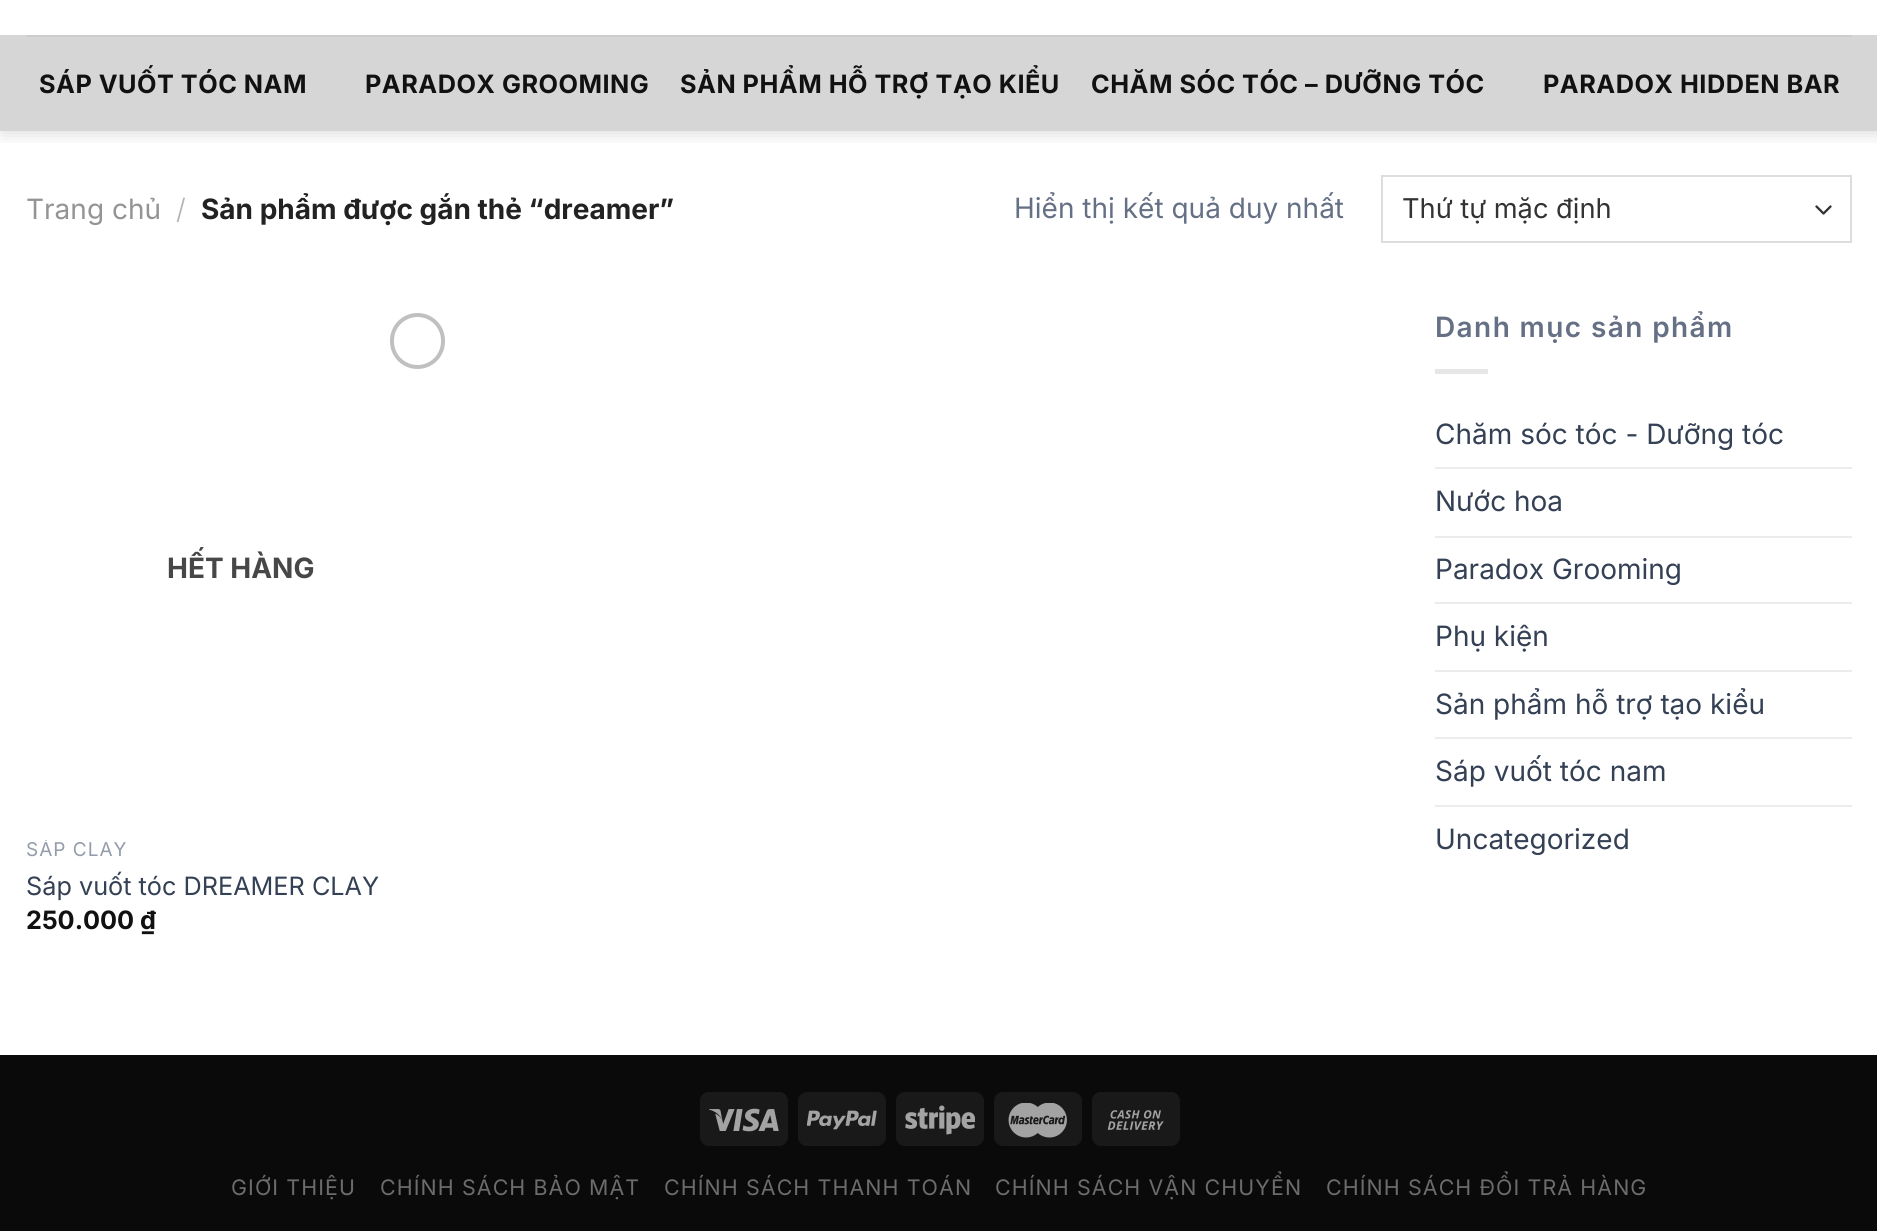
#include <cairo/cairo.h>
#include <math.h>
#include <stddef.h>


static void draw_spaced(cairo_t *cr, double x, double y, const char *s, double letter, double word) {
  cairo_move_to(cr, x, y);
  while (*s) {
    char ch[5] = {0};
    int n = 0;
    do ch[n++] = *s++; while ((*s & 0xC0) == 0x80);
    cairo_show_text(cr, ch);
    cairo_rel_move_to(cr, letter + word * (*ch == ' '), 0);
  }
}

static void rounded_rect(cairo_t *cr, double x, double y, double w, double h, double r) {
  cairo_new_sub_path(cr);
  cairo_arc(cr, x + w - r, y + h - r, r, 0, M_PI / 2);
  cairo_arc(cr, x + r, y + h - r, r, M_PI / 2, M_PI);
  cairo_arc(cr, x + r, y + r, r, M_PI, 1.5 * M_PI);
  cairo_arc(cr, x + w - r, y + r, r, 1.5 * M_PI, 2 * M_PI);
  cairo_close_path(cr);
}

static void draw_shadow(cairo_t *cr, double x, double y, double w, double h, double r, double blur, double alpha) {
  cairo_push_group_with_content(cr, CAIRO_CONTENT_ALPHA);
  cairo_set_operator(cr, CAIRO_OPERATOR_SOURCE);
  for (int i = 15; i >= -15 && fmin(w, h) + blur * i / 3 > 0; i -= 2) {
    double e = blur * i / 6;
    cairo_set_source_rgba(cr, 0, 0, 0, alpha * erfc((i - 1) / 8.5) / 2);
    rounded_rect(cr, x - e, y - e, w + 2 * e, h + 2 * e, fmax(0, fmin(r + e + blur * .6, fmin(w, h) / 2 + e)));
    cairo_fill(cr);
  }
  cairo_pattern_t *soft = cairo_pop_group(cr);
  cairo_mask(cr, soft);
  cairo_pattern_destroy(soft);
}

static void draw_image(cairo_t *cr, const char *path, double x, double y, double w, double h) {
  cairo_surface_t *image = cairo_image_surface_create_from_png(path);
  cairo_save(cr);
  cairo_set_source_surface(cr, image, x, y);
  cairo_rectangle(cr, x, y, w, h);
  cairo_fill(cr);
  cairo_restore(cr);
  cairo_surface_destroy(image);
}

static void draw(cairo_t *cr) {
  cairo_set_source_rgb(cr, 1, 1, 1);
  cairo_paint(cr);
  cairo_save(cr);
  cairo_rectangle(cr, 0, 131, 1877, 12);
  cairo_clip(cr);
  cairo_set_source_rgb(cr, 0, 0, 0);
  draw_shadow(cr, 2, -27, 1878, 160, 0, 9, 0.15);
  cairo_restore(cr);
  cairo_set_source_rgb(cr, 214 / 255.0, 214 / 255.0, 214 / 255.0);
  cairo_rectangle(cr, 0, 35, 1877, 96);
  cairo_fill(cr);
  cairo_set_source_rgb(cr, 203 / 255.0, 204 / 255.0, 206 / 255.0);
  cairo_rectangle(cr, 26, 35, 1826, 2);
  cairo_fill(cr);
  cairo_new_path(cr);
  cairo_move_to(cr, 1816.5, 206.5);
  cairo_line_to(cr, 1823.5, 213.5);
  cairo_line_to(cr, 1830.5, 206.5);
  cairo_set_source_rgb(cr, 51 / 255.0, 51 / 255.0, 51 / 255.0);
  cairo_set_line_width(cr, 2.3);
  cairo_set_line_cap(cr, CAIRO_LINE_CAP_ROUND);
  cairo_set_line_join(cr, CAIRO_LINE_JOIN_ROUND);
  cairo_stroke(cr);
  cairo_rectangle(cr, 1382, 176, 469, 66);
  cairo_set_source_rgb(cr, 221 / 255.0, 221 / 255.0, 221 / 255.0);
  cairo_set_line_width(cr, 2);
  cairo_set_line_cap(cr, CAIRO_LINE_CAP_BUTT);
  cairo_set_line_join(cr, CAIRO_LINE_JOIN_MITER);
  cairo_stroke(cr);
  rounded_rect(cr, 392, 315, 51, 52, 25.5);
  cairo_set_source_rgb(cr, 192 / 255.0, 192 / 255.0, 192 / 255.0);
  cairo_set_line_width(cr, 4);
  cairo_stroke(cr);
  cairo_set_source_rgb(cr, 230 / 255.0, 230 / 255.0, 230 / 255.0);
  cairo_rectangle(cr, 1435, 369, 53, 5);
  cairo_fill(cr);
  cairo_set_source_rgb(cr, 236 / 255.0, 236 / 255.0, 236 / 255.0);
  cairo_rectangle(cr, 1435, 467, 417, 2);
  cairo_fill(cr);
  cairo_rectangle(cr, 1435, 536, 417, 2);
  cairo_fill(cr);
  cairo_rectangle(cr, 1435, 602, 417, 2);
  cairo_fill(cr);
  cairo_rectangle(cr, 1435, 670, 417, 2);
  cairo_fill(cr);
  cairo_rectangle(cr, 1435, 737, 417, 2);
  cairo_fill(cr);
  cairo_rectangle(cr, 1435, 805, 417, 2);
  cairo_fill(cr);
  cairo_set_source_rgb(cr, 10 / 255.0, 10 / 255.0, 10 / 255.0);
  cairo_rectangle(cr, 0, 1055, 1877, 176);
  cairo_fill(cr);
  cairo_set_source_rgb(cr, 25 / 255.0, 25 / 255.0, 25 / 255.0);
  rounded_rect(cr, 700, 1092, 88, 54, 9);
  cairo_fill(cr);
  draw_image(cr, "images/1.png", 709, 1108, 70, 24);
  rounded_rect(cr, 798, 1092, 88, 54, 9);
  cairo_fill(cr);
  draw_image(cr, "images/2.png", 807, 1110, 70, 20);
  rounded_rect(cr, 896, 1092, 88, 54, 9);
  cairo_fill(cr);
  draw_image(cr, "images/3.png", 905, 1105, 70, 30);
  rounded_rect(cr, 994, 1092, 88, 54, 9);
  cairo_fill(cr);
  draw_image(cr, "images/4.png", 1008, 1103, 59, 35);
  rounded_rect(cr, 1092, 1092, 88, 54, 9);
  cairo_fill(cr);
  draw_image(cr, "images/5.png", 1107, 1110, 57, 20);
  cairo_select_font_face(cr, "Inter", CAIRO_FONT_SLANT_NORMAL, CAIRO_FONT_WEIGHT_BOLD);
  cairo_set_font_size(cr, 25.25);
  cairo_set_source_rgb(cr, 17 / 255.0, 17 / 255.0, 17 / 255.0);
  draw_spaced(cr, 39, 93, "SÁP VUỐT TÓC NAM", 0.5, 0);
  draw_spaced(cr, 365, 93, "PARADOX GROOMING", 0.5, 0);
  draw_spaced(cr, 680, 93, "SẢN PHẨM HỖ TRỢ TẠO KIỂU", 0.5, 0);
  draw_spaced(cr, 1091, 93, "CHĂM SÓC TÓC – DƯỠNG TÓC", 0.5, 0);
  draw_spaced(cr, 1543, 93, "PARADOX HIDDEN BAR", 0.5, 0);
  cairo_select_font_face(cr, "Inter", CAIRO_FONT_SLANT_NORMAL, CAIRO_FONT_WEIGHT_NORMAL);
  cairo_set_font_size(cr, 28);
  cairo_set_source_rgb(cr, 148 / 255.0, 148 / 255.0, 148 / 255.0);
  cairo_move_to(cr, 26, 219);
  cairo_show_text(cr, "Trang chủ");
  cairo_select_font_face(cr, "Inter Light", CAIRO_FONT_SLANT_NORMAL, CAIRO_FONT_WEIGHT_NORMAL);
  cairo_set_source_rgb(cr, 178 / 255.0, 178 / 255.0, 178 / 255.0);
  cairo_move_to(cr, 176, 219);
  cairo_show_text(cr, "/");
  cairo_select_font_face(cr, "Inter", CAIRO_FONT_SLANT_NORMAL, CAIRO_FONT_WEIGHT_BOLD);
  cairo_set_source_rgb(cr, 34 / 255.0, 34 / 255.0, 34 / 255.0);
  cairo_move_to(cr, 201, 219);
  cairo_show_text(cr, "Sản phẩm được gắn thẻ “dreamer”");
  cairo_select_font_face(cr, "Inter", CAIRO_FONT_SLANT_NORMAL, CAIRO_FONT_WEIGHT_NORMAL);
  cairo_set_source_rgb(cr, 102 / 255.0, 112 / 255.0, 133 / 255.0);
  cairo_move_to(cr, 1014, 218);
  cairo_show_text(cr, "Hiển thị kết quả duy nhất");
  cairo_set_font_size(cr, 27.25);
  cairo_set_source_rgb(cr, 51 / 255.0, 51 / 255.0, 51 / 255.0);
  cairo_move_to(cr, 1402, 218);
  cairo_show_text(cr, "Thứ tự mặc định");
  cairo_select_font_face(cr, "Inter", CAIRO_FONT_SLANT_NORMAL, CAIRO_FONT_WEIGHT_BOLD);
  cairo_set_font_size(cr, 28);
  cairo_set_source_rgb(cr, 71 / 255.0, 71 / 255.0, 71 / 255.0);
  cairo_move_to(cr, 167, 578);
  cairo_show_text(cr, "HẾT HÀNG");
  cairo_save(cr);
  cairo_rectangle(cr, 26, 840, 429, 23);
  cairo_clip(cr);
  cairo_select_font_face(cr, "Inter", CAIRO_FONT_SLANT_NORMAL, CAIRO_FONT_WEIGHT_NORMAL);
  cairo_set_font_size(cr, 19);
  cairo_set_source_rgb(cr, 148 / 255.0, 155 / 255.0, 170 / 255.0);
  draw_spaced(cr, 26, 856, "SÁP CLAY", 1, 0);
  cairo_restore(cr);
  cairo_select_font_face(cr, "Inter", CAIRO_FONT_SLANT_NORMAL, CAIRO_FONT_WEIGHT_NORMAL);
  cairo_set_font_size(cr, 25.25);
  cairo_set_source_rgb(cr, 52 / 255.0, 64 / 255.0, 84 / 255.0);
  cairo_move_to(cr, 26, 895);
  cairo_show_text(cr, "Sáp vuốt tóc DREAMER CLAY");
  cairo_select_font_face(cr, "Inter", CAIRO_FONT_SLANT_NORMAL, CAIRO_FONT_WEIGHT_BOLD);
  cairo_set_source_rgb(cr, 17 / 255.0, 17 / 255.0, 17 / 255.0);
  cairo_move_to(cr, 26, 929);
  cairo_show_text(cr, "250.000 ₫");
  cairo_select_font_face(cr, "Inter SemiBold", CAIRO_FONT_SLANT_NORMAL, CAIRO_FONT_WEIGHT_NORMAL);
  cairo_set_font_size(cr, 28);
  cairo_set_source_rgb(cr, 102 / 255.0, 112 / 255.0, 133 / 255.0);
  draw_spaced(cr, 1435, 337, "Danh mục sản phẩm", 1.4, 0);
  cairo_select_font_face(cr, "Inter", CAIRO_FONT_SLANT_NORMAL, CAIRO_FONT_WEIGHT_NORMAL);
  cairo_set_source_rgb(cr, 52 / 255.0, 64 / 255.0, 84 / 255.0);
  cairo_move_to(cr, 1435, 444);
  cairo_show_text(cr, "Chăm sóc tóc - Dưỡng tóc");
  cairo_move_to(cr, 1435, 511);
  cairo_show_text(cr, "Nước hoa");
  cairo_move_to(cr, 1435, 579);
  cairo_show_text(cr, "Paradox Grooming");
  cairo_move_to(cr, 1435, 646);
  cairo_show_text(cr, "Phụ kiện");
  cairo_move_to(cr, 1435, 714);
  cairo_show_text(cr, "Sản phẩm hỗ trợ tạo kiểu");
  cairo_move_to(cr, 1435, 781);
  cairo_show_text(cr, "Sáp vuốt tóc nam");
  cairo_move_to(cr, 1435, 849);
  cairo_show_text(cr, "Uncategorized");
  cairo_set_font_size(cr, 21.4);
  cairo_set_source_rgb(cr, 108 / 255.0, 108 / 255.0, 108 / 255.0);
  draw_spaced(cr, 231, 1195, "GIỚI THIỆU", 1.1, 0);
  draw_spaced(cr, 380, 1195, "CHÍNH SÁCH BẢO MẬT", 1.1, 0);
  draw_spaced(cr, 664, 1195, "CHÍNH SÁCH THANH TOÁN", 1.1, 0);
  draw_spaced(cr, 995, 1195, "CHÍNH SÁCH VẬN CHUYỂN", 1.1, 0);
  draw_spaced(cr, 1326, 1195, "CHÍNH SÁCH ĐỔI TRẢ HÀNG", 1.1, 0);
}

int main(void) {
  cairo_surface_t *surface = cairo_image_surface_create(CAIRO_FORMAT_RGB24, 1877, 1231);
  cairo_t *cr = cairo_create(surface);
  cairo_font_options_t *options = cairo_font_options_create();
  cairo_font_options_set_hint_metrics(options, CAIRO_HINT_METRICS_OFF);
  cairo_font_options_set_hint_style(options, CAIRO_HINT_STYLE_NONE);
  cairo_set_font_options(cr, options);
  cairo_set_miter_limit(cr, 4);
  draw(cr);
  cairo_surface_write_to_png(surface, "out.png");
  cairo_font_options_destroy(options);
  cairo_destroy(cr);
  cairo_surface_destroy(surface);
  return 0;
}
